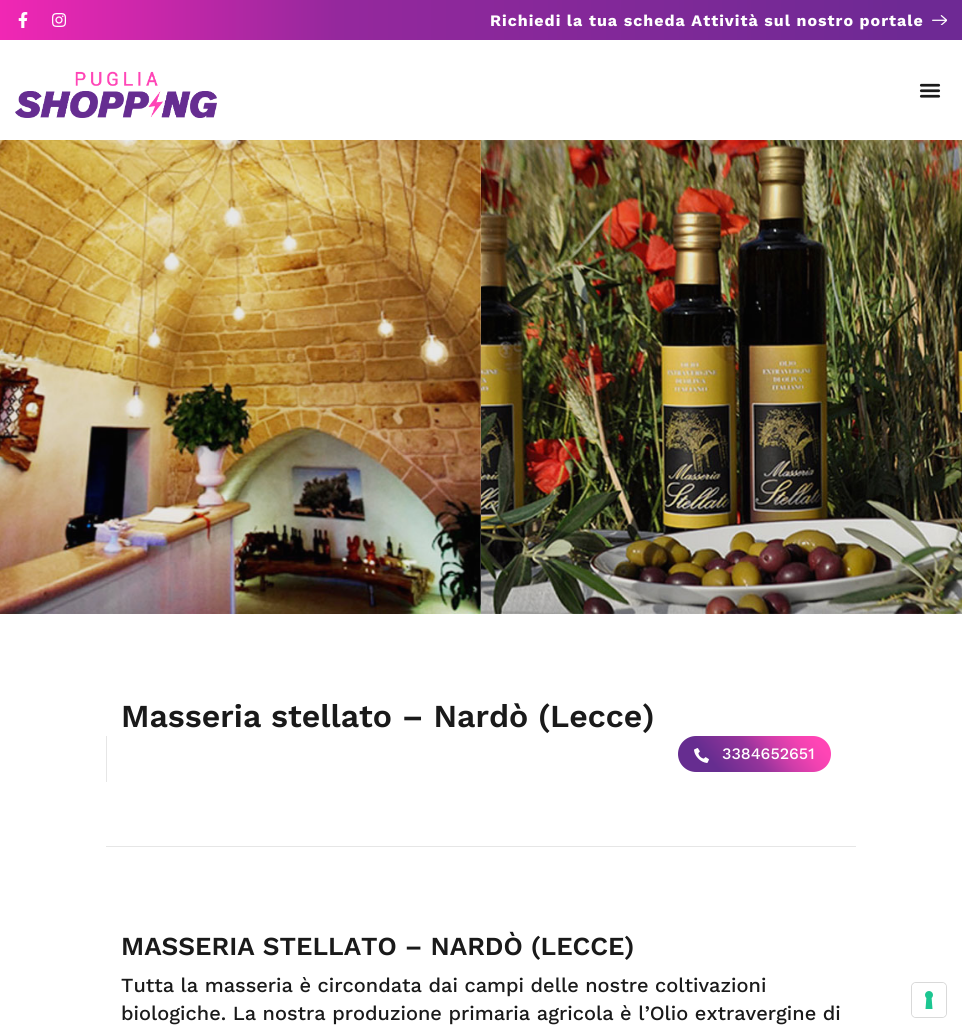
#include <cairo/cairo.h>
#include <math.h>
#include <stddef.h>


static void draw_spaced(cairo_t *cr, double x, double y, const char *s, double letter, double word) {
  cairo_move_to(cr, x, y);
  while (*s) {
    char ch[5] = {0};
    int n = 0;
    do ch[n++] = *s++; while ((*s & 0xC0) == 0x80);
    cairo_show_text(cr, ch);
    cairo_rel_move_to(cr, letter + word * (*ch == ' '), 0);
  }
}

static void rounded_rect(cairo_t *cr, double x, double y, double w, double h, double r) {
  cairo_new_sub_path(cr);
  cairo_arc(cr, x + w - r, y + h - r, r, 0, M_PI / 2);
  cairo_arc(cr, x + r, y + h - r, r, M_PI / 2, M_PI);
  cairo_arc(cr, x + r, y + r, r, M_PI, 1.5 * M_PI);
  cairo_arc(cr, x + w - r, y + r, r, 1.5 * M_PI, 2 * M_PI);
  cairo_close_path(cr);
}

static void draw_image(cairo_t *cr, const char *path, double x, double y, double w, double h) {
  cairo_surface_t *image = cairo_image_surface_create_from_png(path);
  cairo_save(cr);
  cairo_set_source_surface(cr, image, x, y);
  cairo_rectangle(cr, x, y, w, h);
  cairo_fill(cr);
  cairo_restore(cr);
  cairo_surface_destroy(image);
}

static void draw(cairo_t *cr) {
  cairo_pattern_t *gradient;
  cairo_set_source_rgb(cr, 1, 1, 1);
  cairo_paint(cr);
  gradient = cairo_pattern_create_linear(0, 20, 962, 20);
  cairo_pattern_add_color_stop_rgba(gradient, 0, 1, 39 / 255.0, 184 / 255.0, 1);
  cairo_pattern_add_color_stop_rgba(gradient, 0, 241 / 255.0, 39 / 255.0, 180 / 255.0, 1);
  cairo_pattern_add_color_stop_rgba(gradient, 0.14, 206 / 255.0, 39 / 255.0, 171 / 255.0, 1);
  cairo_pattern_add_color_stop_rgba(gradient, 0.35, 149 / 255.0, 40 / 255.0, 157 / 255.0, 1);
  cairo_pattern_add_color_stop_rgba(gradient, 0.94, 110 / 255.0, 41 / 255.0, 148 / 255.0, 1);
  cairo_set_source(cr, gradient);
  cairo_pattern_destroy(gradient);
  cairo_rectangle(cr, 0, 0, 962, 40);
  cairo_fill(cr);
  draw_image(cr, "images/1.png", 18, 12, 10, 16);
  draw_image(cr, "images/2.png", 52, 13, 14, 14);
  draw_image(cr, "images/3.png", 932, 15, 15, 10);
  draw_image(cr, "images/4.png", 15, 71, 202, 47);
  draw_image(cr, "images/5.png", 919, 83, 22, 15);
  draw_image(cr, "images/6.png", 0, 140, 481, 474);
  draw_image(cr, "images/7.png", 481, 140, 481, 474);
  cairo_set_source_rgb(cr, 230 / 255.0, 230 / 255.0, 230 / 255.0);
  cairo_rectangle(cr, 106, 846, 750, 1);
  cairo_fill(cr);
  cairo_rectangle(cr, 106, 736, 1, 46);
  cairo_fill(cr);
  gradient = cairo_pattern_create_linear(701, 799, 808, 709);
  cairo_pattern_add_color_stop_rgba(gradient, 0.23, 102 / 255.0, 45 / 255.0, 144 / 255.0, 1);
  cairo_pattern_add_color_stop_rgba(gradient, 0.49, 149 / 255.0, 52 / 255.0, 155 / 255.0, 1);
  cairo_pattern_add_color_stop_rgba(gradient, 0.65, 206 / 255.0, 61 / 255.0, 169 / 255.0, 1);
  cairo_pattern_add_color_stop_rgba(gradient, 0.79, 241 / 255.0, 66 / 255.0, 177 / 255.0, 1);
  cairo_pattern_add_color_stop_rgba(gradient, 0.9, 1, 69 / 255.0, 181 / 255.0, 1);
  cairo_set_source(cr, gradient);
  cairo_pattern_destroy(gradient);
  rounded_rect(cr, 678, 736, 153, 36, 18);
  cairo_fill(cr);
  draw_image(cr, "images/8.png", 694, 748, 15, 15);
  rounded_rect(cr, 911.5, 982.5, 35, 35, 4.5);
  cairo_set_source_rgb(cr, 217 / 255.0, 217 / 255.0, 217 / 255.0);
  cairo_set_line_width(cr, 1);
  cairo_stroke(cr);
  cairo_set_source_rgb(cr, 1, 1, 1);
  rounded_rect(cr, 912, 983, 34, 34, 4);
  cairo_fill(cr);
  draw_image(cr, "images/9.png", 925, 991, 8, 18);
  cairo_select_font_face(cr, "Work Sans", CAIRO_FONT_SLANT_NORMAL, CAIRO_FONT_WEIGHT_BOLD);
  cairo_set_font_size(cr, 16);
  draw_spaced(cr, 490, 26, "Richiedi la tua scheda Attività sul nostro portale", 1, 0);
  cairo_select_font_face(cr, "Work Sans SemiBold", CAIRO_FONT_SLANT_NORMAL, CAIRO_FONT_WEIGHT_NORMAL);
  cairo_set_font_size(cr, 32);
  cairo_set_source_rgb(cr, 26 / 255.0, 26 / 255.0, 26 / 255.0);
  cairo_move_to(cr, 121, 727);
  cairo_show_text(cr, "Masseria stellato – Nardò (Lecce)");
  cairo_select_font_face(cr, "Work Sans Medium", CAIRO_FONT_SLANT_NORMAL, CAIRO_FONT_WEIGHT_NORMAL);
  cairo_set_font_size(cr, 16);
  cairo_set_source_rgb(cr, 1, 1, 1);
  cairo_move_to(cr, 722, 759);
  cairo_show_text(cr, "3384652651");
  cairo_select_font_face(cr, "Work Sans SemiBold", CAIRO_FONT_SLANT_NORMAL, CAIRO_FONT_WEIGHT_NORMAL);
  cairo_set_font_size(cr, 26);
  cairo_set_source_rgb(cr, 26 / 255.0, 26 / 255.0, 26 / 255.0);
  cairo_move_to(cr, 121, 955);
  cairo_show_text(cr, "MASSERIA STELLATO – NARDÒ (LECCE)");
  cairo_select_font_face(cr, "Work Sans Medium", CAIRO_FONT_SLANT_NORMAL, CAIRO_FONT_WEIGHT_NORMAL);
  cairo_set_font_size(cr, 20);
  cairo_move_to(cr, 121, 992);
  cairo_show_text(cr, "Tutta la masseria è circondata dai campi delle nostre coltivazioni");
  cairo_move_to(cr, 121, 1020);
  cairo_show_text(cr, "biologiche. La nostra produzione primaria agricola è l’Olio extravergine di");
}

int main(void) {
  cairo_surface_t *surface = cairo_image_surface_create(CAIRO_FORMAT_RGB24, 962, 1033);
  cairo_t *cr = cairo_create(surface);
  cairo_font_options_t *options = cairo_font_options_create();
  cairo_font_options_set_hint_metrics(options, CAIRO_HINT_METRICS_OFF);
  cairo_font_options_set_hint_style(options, CAIRO_HINT_STYLE_NONE);
  cairo_set_font_options(cr, options);
  cairo_set_miter_limit(cr, 4);
  draw(cr);
  cairo_surface_write_to_png(surface, "out.png");
  cairo_font_options_destroy(options);
  cairo_destroy(cr);
  cairo_surface_destroy(surface);
  return 0;
}
